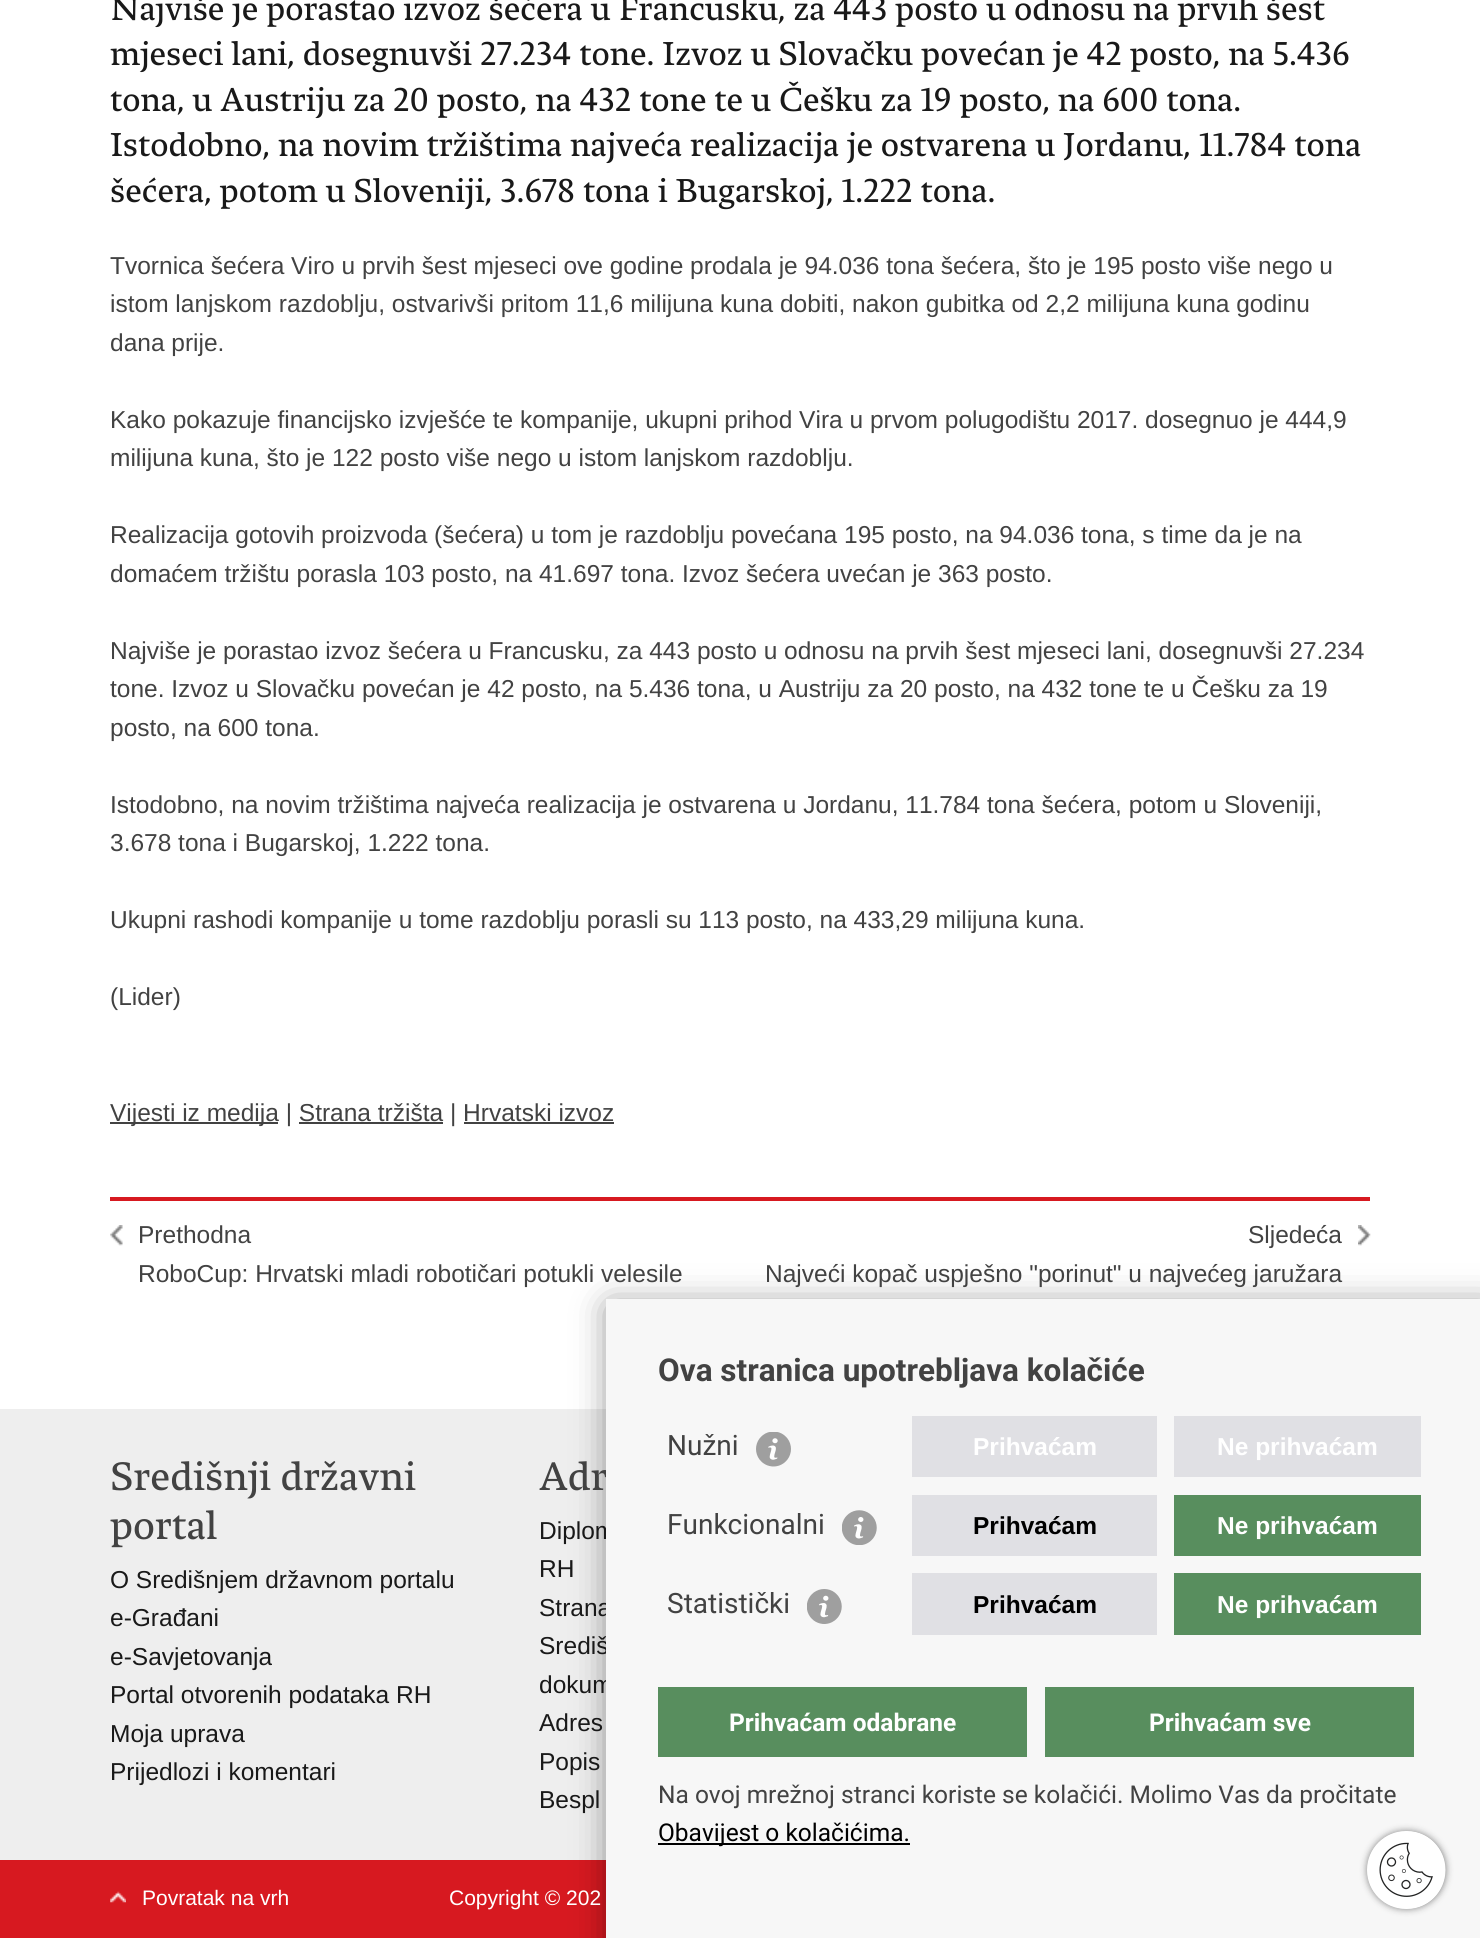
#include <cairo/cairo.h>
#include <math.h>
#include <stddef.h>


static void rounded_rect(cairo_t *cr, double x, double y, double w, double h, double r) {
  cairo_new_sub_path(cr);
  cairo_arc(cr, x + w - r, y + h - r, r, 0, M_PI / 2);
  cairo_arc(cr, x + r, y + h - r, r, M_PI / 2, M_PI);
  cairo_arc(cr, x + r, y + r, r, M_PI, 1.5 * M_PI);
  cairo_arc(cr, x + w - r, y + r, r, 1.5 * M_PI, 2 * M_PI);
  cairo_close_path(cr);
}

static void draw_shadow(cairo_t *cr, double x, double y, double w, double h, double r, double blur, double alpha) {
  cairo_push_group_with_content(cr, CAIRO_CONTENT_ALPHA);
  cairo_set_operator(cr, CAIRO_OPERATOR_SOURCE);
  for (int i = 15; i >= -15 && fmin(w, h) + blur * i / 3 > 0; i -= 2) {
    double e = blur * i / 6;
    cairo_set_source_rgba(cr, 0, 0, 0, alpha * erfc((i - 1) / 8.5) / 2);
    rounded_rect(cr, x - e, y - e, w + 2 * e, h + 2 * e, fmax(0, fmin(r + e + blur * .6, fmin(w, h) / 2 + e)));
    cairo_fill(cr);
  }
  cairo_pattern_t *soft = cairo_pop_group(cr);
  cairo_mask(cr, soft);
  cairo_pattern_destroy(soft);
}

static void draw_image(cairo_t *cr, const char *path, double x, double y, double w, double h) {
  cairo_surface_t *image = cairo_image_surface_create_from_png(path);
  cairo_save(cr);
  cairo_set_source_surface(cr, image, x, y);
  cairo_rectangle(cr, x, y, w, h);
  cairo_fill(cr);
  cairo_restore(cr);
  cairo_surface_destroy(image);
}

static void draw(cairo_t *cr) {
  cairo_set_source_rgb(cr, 1, 1, 1);
  cairo_paint(cr);
  cairo_set_source_rgb(cr, 66 / 255.0, 66 / 255.0, 66 / 255.0);
  cairo_rectangle(cr, 110, 1122, 168, 2);
  cairo_fill(cr);
  cairo_rectangle(cr, 299, 1122, 144, 2);
  cairo_fill(cr);
  cairo_rectangle(cr, 464, 1122, 150, 2);
  cairo_fill(cr);
  cairo_set_source_rgb(cr, 215 / 255.0, 25 / 255.0, 32 / 255.0);
  cairo_rectangle(cr, 110, 1197, 1260, 4);
  cairo_fill(cr);
  draw_image(cr, "images/1.png", 110, 1225, 13, 21);
  draw_image(cr, "images/2.png", 1358, 1225, 13, 21);
  cairo_set_source_rgb(cr, 238 / 255.0, 238 / 255.0, 238 / 255.0);
  cairo_rectangle(cr, 0, 1409, 606, 451);
  cairo_fill(cr);
  cairo_set_source_rgb(cr, 215 / 255.0, 25 / 255.0, 32 / 255.0);
  cairo_rectangle(cr, 0, 1860, 606, 78);
  cairo_fill(cr);
  cairo_set_source_rgb(cr, 0, 0, 0);
  draw_shadow(cr, 611, 1307, 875, 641, 0, 17.5, 0.5);
  draw_image(cr, "images/6.png", 110, 1891, 16, 12);
  cairo_select_font_face(cr, "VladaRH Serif", CAIRO_FONT_SLANT_NORMAL, CAIRO_FONT_WEIGHT_NORMAL);
  cairo_set_font_size(cr, 35);
  cairo_set_source_rgb(cr, 25 / 255.0, 25 / 255.0, 25 / 255.0);
  cairo_move_to(cr, 110, 20);
  cairo_show_text(cr, "Najviše je porastao izvoz šećera u Francusku, za 443 posto u odnosu na prvih šest");
  cairo_move_to(cr, 110, 65);
  cairo_show_text(cr, "mjeseci lani, dosegnuvši 27.234 tone. Izvoz u Slovačku povećan je 42 posto, na 5.436");
  cairo_move_to(cr, 110, 111);
  cairo_show_text(cr, "tona, u Austriju za 20 posto, na 432 tone te u Češku za 19 posto, na 600 tona.");
  cairo_move_to(cr, 110, 156);
  cairo_show_text(cr, "Istodobno, na novim tržištima najveća realizacija je ostvarena u Jordanu, 11.784 tona");
  cairo_move_to(cr, 110, 202);
  cairo_show_text(cr, "šećera, potom u Sloveniji, 3.678 tona i Bugarskoj, 1.222 tona.");
  cairo_select_font_face(cr, "Liberation Sans", CAIRO_FONT_SLANT_NORMAL, CAIRO_FONT_WEIGHT_NORMAL);
  cairo_set_font_size(cr, 24.5);
  cairo_set_source_rgb(cr, 66 / 255.0, 66 / 255.0, 66 / 255.0);
  cairo_move_to(cr, 110, 274);
  cairo_show_text(cr, "Tvornica šećera Viro u prvih šest mjeseci ove godine prodala je 94.036 tona šećera, što je 195 posto više nego u");
  cairo_move_to(cr, 110, 312);
  cairo_show_text(cr, "istom lanjskom razdoblju, ostvarivši pritom 11,6 milijuna kuna dobiti, nakon gubitka od 2,2 milijuna kuna godinu");
  cairo_move_to(cr, 110, 351);
  cairo_show_text(cr, "dana prije.");
  cairo_move_to(cr, 110, 428);
  cairo_show_text(cr, "Kako pokazuje financijsko izvješće te kompanije, ukupni prihod Vira u prvom polugodištu 2017. dosegnuo je 444,9");
  cairo_move_to(cr, 110, 466);
  cairo_show_text(cr, "milijuna kuna, što je 122 posto više nego u istom lanjskom razdoblju.");
  cairo_move_to(cr, 110, 543);
  cairo_show_text(cr, "Realizacija gotovih proizvoda (šećera) u tom je razdoblju povećana 195 posto, na 94.036 tona, s time da je na");
  cairo_move_to(cr, 110, 582);
  cairo_show_text(cr, "domaćem tržištu porasla 103 posto, na 41.697 tona. Izvoz šećera uvećan je 363 posto.");
  cairo_move_to(cr, 110, 659);
  cairo_show_text(cr, "Najviše je porastao izvoz šećera u Francusku, za 443 posto u odnosu na prvih šest mjeseci lani, dosegnuvši 27.234");
  cairo_move_to(cr, 110, 697);
  cairo_show_text(cr, "tone. Izvoz u Slovačku povećan je 42 posto, na 5.436 tona, u Austriju za 20 posto, na 432 tone te u Češku za 19");
  cairo_move_to(cr, 110, 736);
  cairo_show_text(cr, "posto, na 600 tona.");
  cairo_move_to(cr, 110, 813);
  cairo_show_text(cr, "Istodobno, na novim tržištima najveća realizacija je ostvarena u Jordanu, 11.784 tona šećera, potom u Sloveniji,");
  cairo_move_to(cr, 110, 851);
  cairo_show_text(cr, "3.678 tona i Bugarskoj, 1.222 tona.");
  cairo_move_to(cr, 110, 928);
  cairo_show_text(cr, "Ukupni rashodi kompanije u tome razdoblju porasli su 113 posto, na 433,29 milijuna kuna.");
  cairo_move_to(cr, 110, 1005);
  cairo_show_text(cr, "(Lider)");
  cairo_move_to(cr, 110, 1121);
  cairo_show_text(cr, "Vijesti iz medija | Strana tržišta | Hrvatski izvoz");
  cairo_move_to(cr, 138, 1243);
  cairo_show_text(cr, "Prethodna");
  cairo_move_to(cr, 138, 1282);
  cairo_show_text(cr, "RoboCup: Hrvatski mladi robotičari potukli velesile");
  cairo_move_to(cr, 1248, 1243);
  cairo_show_text(cr, "Sljedeća");
  cairo_move_to(cr, 765, 1282);
  cairo_show_text(cr, "Najveći kopač uspješno \"porinut\" u najvećeg jaružara");
  cairo_select_font_face(cr, "VladaRH Serif", CAIRO_FONT_SLANT_NORMAL, CAIRO_FONT_WEIGHT_NORMAL);
  cairo_set_font_size(cr, 42);
  cairo_move_to(cr, 110, 1490);
  cairo_show_text(cr, "Središnji državni");
  cairo_move_to(cr, 110, 1539);
  cairo_show_text(cr, "portal");
  cairo_select_font_face(cr, "Liberation Sans", CAIRO_FONT_SLANT_NORMAL, CAIRO_FONT_WEIGHT_NORMAL);
  cairo_set_font_size(cr, 24.5);
  cairo_set_source_rgb(cr, 25 / 255.0, 25 / 255.0, 25 / 255.0);
  cairo_move_to(cr, 110, 1588);
  cairo_show_text(cr, "O Središnjem državnom portalu");
  cairo_move_to(cr, 110, 1626);
  cairo_show_text(cr, "e-Građani");
  cairo_move_to(cr, 110, 1665);
  cairo_show_text(cr, "e-Savjetovanja");
  cairo_move_to(cr, 110, 1703);
  cairo_show_text(cr, "Portal otvorenih podataka RH");
  cairo_move_to(cr, 110, 1742);
  cairo_show_text(cr, "Moja uprava");
  cairo_move_to(cr, 110, 1780);
  cairo_show_text(cr, "Prijedlozi i komentari");
  cairo_select_font_face(cr, "VladaRH Serif", CAIRO_FONT_SLANT_NORMAL, CAIRO_FONT_WEIGHT_NORMAL);
  cairo_set_font_size(cr, 42);
  cairo_set_source_rgb(cr, 66 / 255.0, 66 / 255.0, 66 / 255.0);
  cairo_move_to(cr, 539, 1490);
  cairo_show_text(cr, "Adr");
  cairo_select_font_face(cr, "Liberation Sans", CAIRO_FONT_SLANT_NORMAL, CAIRO_FONT_WEIGHT_NORMAL);
  cairo_set_font_size(cr, 24.5);
  cairo_set_source_rgb(cr, 25 / 255.0, 25 / 255.0, 25 / 255.0);
  cairo_move_to(cr, 539, 1539);
  cairo_show_text(cr, "Diplom");
  cairo_move_to(cr, 539, 1577);
  cairo_show_text(cr, "RH");
  cairo_move_to(cr, 539, 1616);
  cairo_show_text(cr, "Strana");
  cairo_move_to(cr, 539, 1654);
  cairo_show_text(cr, "Središ");
  cairo_move_to(cr, 539, 1693);
  cairo_show_text(cr, "dokum");
  cairo_move_to(cr, 539, 1731);
  cairo_show_text(cr, "Adres");
  cairo_move_to(cr, 539, 1770);
  cairo_show_text(cr, "Popis");
  cairo_move_to(cr, 539, 1808);
  cairo_show_text(cr, "Bespl");
  cairo_set_source_rgb(cr, 247 / 255.0, 247 / 255.0, 247 / 255.0);
  cairo_rectangle(cr, 606, 1299, 874, 639);
  cairo_fill(cr);
  cairo_select_font_face(cr, "Roboto", CAIRO_FONT_SLANT_NORMAL, CAIRO_FONT_WEIGHT_BOLD);
  cairo_set_font_size(cr, 31.5);
  cairo_set_source_rgb(cr, 66 / 255.0, 66 / 255.0, 66 / 255.0);
  cairo_move_to(cr, 658, 1381);
  cairo_show_text(cr, "Ova stranica upotrebljava kolačiće");
  cairo_select_font_face(cr, "Roboto", CAIRO_FONT_SLANT_NORMAL, CAIRO_FONT_WEIGHT_NORMAL);
  cairo_set_font_size(cr, 28);
  cairo_move_to(cr, 667, 1455);
  cairo_show_text(cr, "Nužni");
  draw_image(cr, "images/3.png", 756, 1432, 35, 35);
  cairo_set_source_rgb(cr, 224 / 255.0, 224 / 255.0, 228 / 255.0);
  cairo_rectangle(cr, 912, 1416, 245, 61);
  cairo_fill(cr);
  cairo_select_font_face(cr, "Liberation Sans", CAIRO_FONT_SLANT_NORMAL, CAIRO_FONT_WEIGHT_BOLD);
  cairo_set_font_size(cr, 24.5);
  cairo_set_source_rgb(cr, 1, 1, 1);
  cairo_move_to(cr, 973, 1455);
  cairo_show_text(cr, "Prihvaćam");
  cairo_set_source_rgb(cr, 224 / 255.0, 224 / 255.0, 228 / 255.0);
  cairo_rectangle(cr, 1174, 1416, 247, 61);
  cairo_fill(cr);
  cairo_set_source_rgb(cr, 1, 1, 1);
  cairo_move_to(cr, 1217, 1455);
  cairo_show_text(cr, "Ne prihvaćam");
  cairo_select_font_face(cr, "Roboto", CAIRO_FONT_SLANT_NORMAL, CAIRO_FONT_WEIGHT_NORMAL);
  cairo_set_font_size(cr, 28);
  cairo_set_source_rgb(cr, 66 / 255.0, 66 / 255.0, 66 / 255.0);
  cairo_move_to(cr, 667, 1534);
  cairo_show_text(cr, "Funkcionalni");
  draw_image(cr, "images/4.png", 842, 1510, 35, 35);
  cairo_set_source_rgb(cr, 224 / 255.0, 224 / 255.0, 228 / 255.0);
  cairo_rectangle(cr, 912, 1495, 245, 61);
  cairo_fill(cr);
  cairo_select_font_face(cr, "Liberation Sans", CAIRO_FONT_SLANT_NORMAL, CAIRO_FONT_WEIGHT_BOLD);
  cairo_set_font_size(cr, 24.5);
  cairo_set_source_rgb(cr, 0, 0, 0);
  cairo_move_to(cr, 973, 1534);
  cairo_show_text(cr, "Prihvaćam");
  cairo_set_source_rgb(cr, 88 / 255.0, 142 / 255.0, 94 / 255.0);
  cairo_rectangle(cr, 1174, 1495, 247, 61);
  cairo_fill(cr);
  cairo_set_source_rgb(cr, 1, 1, 1);
  cairo_move_to(cr, 1217, 1534);
  cairo_show_text(cr, "Ne prihvaćam");
  cairo_select_font_face(cr, "Roboto", CAIRO_FONT_SLANT_NORMAL, CAIRO_FONT_WEIGHT_NORMAL);
  cairo_set_font_size(cr, 28);
  cairo_set_source_rgb(cr, 66 / 255.0, 66 / 255.0, 66 / 255.0);
  cairo_move_to(cr, 667, 1613);
  cairo_show_text(cr, "Statistički");
  draw_image(cr, "images/5.png", 807, 1589, 35, 35);
  cairo_set_source_rgb(cr, 224 / 255.0, 224 / 255.0, 228 / 255.0);
  cairo_rectangle(cr, 912, 1573, 245, 62);
  cairo_fill(cr);
  cairo_select_font_face(cr, "Liberation Sans", CAIRO_FONT_SLANT_NORMAL, CAIRO_FONT_WEIGHT_BOLD);
  cairo_set_font_size(cr, 24.5);
  cairo_set_source_rgb(cr, 0, 0, 0);
  cairo_move_to(cr, 973, 1613);
  cairo_show_text(cr, "Prihvaćam");
  cairo_set_source_rgb(cr, 88 / 255.0, 142 / 255.0, 94 / 255.0);
  cairo_rectangle(cr, 1174, 1573, 247, 62);
  cairo_fill(cr);
  cairo_set_source_rgb(cr, 1, 1, 1);
  cairo_move_to(cr, 1217, 1613);
  cairo_show_text(cr, "Ne prihvaćam");
  cairo_set_source_rgb(cr, 88 / 255.0, 142 / 255.0, 94 / 255.0);
  cairo_rectangle(cr, 658, 1687, 369, 70);
  cairo_fill(cr);
  cairo_select_font_face(cr, "Roboto", CAIRO_FONT_SLANT_NORMAL, CAIRO_FONT_WEIGHT_BOLD);
  cairo_set_source_rgb(cr, 1, 1, 1);
  cairo_move_to(cr, 729, 1731);
  cairo_show_text(cr, "Prihvaćam odabrane");
  cairo_set_source_rgb(cr, 88 / 255.0, 142 / 255.0, 94 / 255.0);
  cairo_rectangle(cr, 1045, 1687, 369, 70);
  cairo_fill(cr);
  cairo_set_source_rgb(cr, 1, 1, 1);
  cairo_move_to(cr, 1149, 1731);
  cairo_show_text(cr, "Prihvaćam sve");
  cairo_select_font_face(cr, "Roboto", CAIRO_FONT_SLANT_NORMAL, CAIRO_FONT_WEIGHT_NORMAL);
  cairo_set_source_rgb(cr, 66 / 255.0, 66 / 255.0, 66 / 255.0);
  cairo_move_to(cr, 658, 1803);
  cairo_show_text(cr, "Na ovoj mrežnoj stranci koriste se kolačići. Molimo Vas da pročitate");
  cairo_set_source_rgb(cr, 0, 0, 0);
  cairo_rectangle(cr, 658, 1843, 252, 2);
  cairo_fill(cr);
  cairo_move_to(cr, 658, 1841);
  cairo_show_text(cr, "Obavijest o kolačićima.");
  cairo_select_font_face(cr, "Liberation Sans", CAIRO_FONT_SLANT_NORMAL, CAIRO_FONT_WEIGHT_NORMAL);
  cairo_set_font_size(cr, 21);
  cairo_set_source_rgb(cr, 1, 1, 1);
  cairo_move_to(cr, 142, 1905);
  cairo_show_text(cr, "Povratak na vrh");
  cairo_move_to(cr, 449, 1905);
  cairo_show_text(cr, "Copyright © 202");
  cairo_set_source_rgb(cr, 133 / 255.0, 133 / 255.0, 133 / 255.0);
  draw_shadow(cr, 1367, 1831, 79, 78, 39, 3.5, 1);
  draw_image(cr, "images/7.png", 1367, 1831, 79, 78);
}

int main(void) {
  cairo_surface_t *surface = cairo_image_surface_create(CAIRO_FORMAT_RGB24, 1480, 1938);
  cairo_t *cr = cairo_create(surface);
  cairo_font_options_t *options = cairo_font_options_create();
  cairo_font_options_set_hint_metrics(options, CAIRO_HINT_METRICS_OFF);
  cairo_font_options_set_hint_style(options, CAIRO_HINT_STYLE_NONE);
  cairo_set_font_options(cr, options);
  cairo_set_miter_limit(cr, 4);
  draw(cr);
  cairo_surface_write_to_png(surface, "out.png");
  cairo_font_options_destroy(options);
  cairo_destroy(cr);
  cairo_surface_destroy(surface);
  return 0;
}
